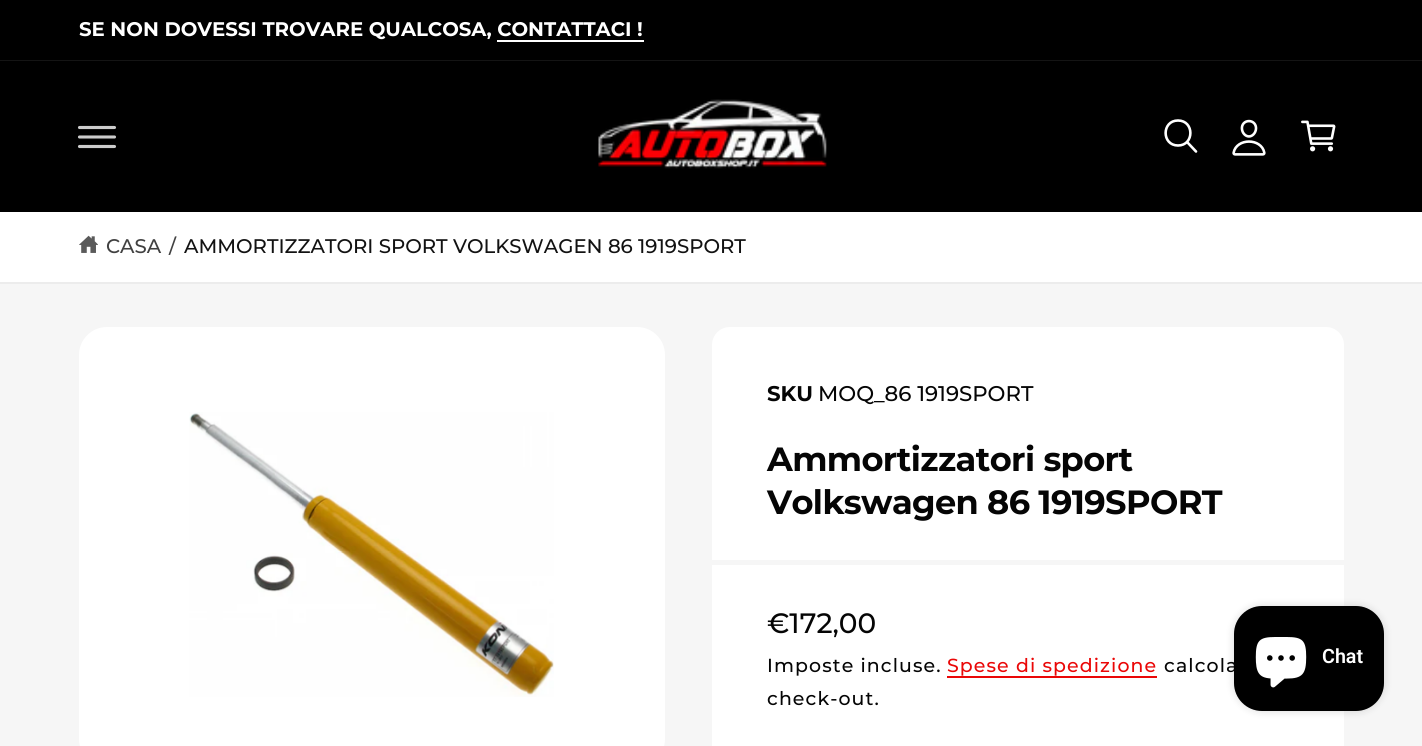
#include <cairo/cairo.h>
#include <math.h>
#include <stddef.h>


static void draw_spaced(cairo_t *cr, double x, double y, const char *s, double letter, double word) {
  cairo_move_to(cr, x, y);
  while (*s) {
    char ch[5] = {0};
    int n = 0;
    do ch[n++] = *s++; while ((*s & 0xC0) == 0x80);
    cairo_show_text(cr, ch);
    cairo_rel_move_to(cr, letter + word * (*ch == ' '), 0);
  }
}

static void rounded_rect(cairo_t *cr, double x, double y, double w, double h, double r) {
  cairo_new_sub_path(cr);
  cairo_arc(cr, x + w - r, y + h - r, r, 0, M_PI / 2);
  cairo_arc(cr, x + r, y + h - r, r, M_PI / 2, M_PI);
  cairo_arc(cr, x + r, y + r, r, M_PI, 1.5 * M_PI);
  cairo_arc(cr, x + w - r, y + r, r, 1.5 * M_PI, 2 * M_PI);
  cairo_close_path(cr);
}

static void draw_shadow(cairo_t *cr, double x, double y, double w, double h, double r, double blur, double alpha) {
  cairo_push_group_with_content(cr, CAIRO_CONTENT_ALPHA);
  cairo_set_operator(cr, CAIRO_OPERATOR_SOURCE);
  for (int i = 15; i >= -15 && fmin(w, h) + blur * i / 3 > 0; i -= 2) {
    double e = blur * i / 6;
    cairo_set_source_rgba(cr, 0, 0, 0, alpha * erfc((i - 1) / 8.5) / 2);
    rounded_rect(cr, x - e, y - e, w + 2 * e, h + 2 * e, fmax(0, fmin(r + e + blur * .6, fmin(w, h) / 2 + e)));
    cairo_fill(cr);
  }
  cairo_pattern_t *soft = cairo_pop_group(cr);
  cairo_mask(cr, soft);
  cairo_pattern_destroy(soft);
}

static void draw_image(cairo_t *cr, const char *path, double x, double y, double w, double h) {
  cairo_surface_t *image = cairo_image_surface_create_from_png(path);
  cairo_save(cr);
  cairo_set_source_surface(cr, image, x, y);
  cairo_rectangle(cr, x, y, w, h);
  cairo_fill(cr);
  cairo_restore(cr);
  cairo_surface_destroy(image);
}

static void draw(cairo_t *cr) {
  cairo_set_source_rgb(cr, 246 / 255.0, 246 / 255.0, 246 / 255.0);
  cairo_paint(cr);
  cairo_set_source_rgb(cr, 0, 0, 0);
  cairo_rectangle(cr, 0, 0, 1422, 60);
  cairo_fill(cr);
  cairo_set_source_rgb(cr, 20 / 255.0, 20 / 255.0, 20 / 255.0);
  cairo_rectangle(cr, 0, 60, 1422, 1);
  cairo_fill(cr);
  cairo_set_source_rgb(cr, 1, 1, 1);
  cairo_rectangle(cr, 497, 40, 147, 2);
  cairo_fill(cr);
  cairo_set_source_rgb(cr, 0, 0, 0);
  cairo_rectangle(cr, 0, 61, 1422, 151);
  cairo_fill(cr);
  cairo_new_path(cr);
  cairo_move_to(cr, 79.5, 127.5);
  cairo_line_to(cr, 114.5, 127.5);
  cairo_move_to(cr, 79.5, 137);
  cairo_line_to(cr, 114.5, 137);
  cairo_move_to(cr, 79.5, 146.5);
  cairo_line_to(cr, 114.5, 146.5);
  cairo_set_source_rgb(cr, 204 / 255.0, 204 / 255.0, 204 / 255.0);
  cairo_set_line_width(cr, 3.1);
  cairo_set_line_cap(cr, CAIRO_LINE_CAP_ROUND);
  cairo_stroke(cr);
  draw_image(cr, "images/1.png", 598, 99, 229, 70);
  cairo_new_path(cr);
  cairo_move_to(cr, 1178, 120.5);
  cairo_curve_to(cr, 1161.5, 120.5, 1161.5, 145.5, 1178, 145.5);
  cairo_curve_to(cr, 1194.5, 145.5, 1194.5, 120.5, 1178, 120.5);
  cairo_close_path(cr);
  cairo_set_source_rgb(cr, 1, 1, 1);
  cairo_set_line_width(cr, 2.6);
  cairo_set_line_cap(cr, CAIRO_LINE_CAP_BUTT);
  cairo_stroke(cr);
  cairo_new_path(cr);
  cairo_move_to(cr, 1187.5, 142.5);
  cairo_line_to(cr, 1196, 151.5);
  cairo_set_line_cap(cr, CAIRO_LINE_CAP_ROUND);
  cairo_stroke(cr);
  draw_image(cr, "images/2.png", 1232, 119, 34, 37);
  draw_image(cr, "images/3.png", 1301, 120, 35, 32);
  cairo_rectangle(cr, 0, 212, 1422, 70);
  cairo_fill(cr);
  cairo_set_source_rgb(cr, 236 / 255.0, 236 / 255.0, 236 / 255.0);
  cairo_rectangle(cr, 0, 282, 1422, 2);
  cairo_fill(cr);
  draw_image(cr, "images/4.png", 79, 235, 19, 18);
  cairo_set_source_rgb(cr, 1, 1, 1);
  rounded_rect(cr, 79, 327, 586, 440, 28);
  cairo_fill(cr);
  draw_image(cr, "images/5.png", 189, 412, 365, 285);
  rounded_rect(cr, 712, 327, 632, 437, 18);
  cairo_fill(cr);
  cairo_set_source_rgb(cr, 246 / 255.0, 246 / 255.0, 246 / 255.0);
  cairo_rectangle(cr, 712, 560, 632, 5);
  cairo_fill(cr);
  cairo_set_source_rgb(cr, 234 / 255.0, 7 / 255.0, 7 / 255.0);
  cairo_rectangle(cr, 947, 676, 210, 2);
  cairo_fill(cr);
  cairo_set_source_rgb(cr, 0, 0, 0);
  draw_shadow(cr, 1234, 606, 150, 105, 28, 4.5, 0.15);
  cairo_select_font_face(cr, "Montserrat", CAIRO_FONT_SLANT_NORMAL, CAIRO_FONT_WEIGHT_BOLD);
  cairo_set_font_size(cr, 19.7);
  cairo_set_source_rgb(cr, 1, 1, 1);
  cairo_move_to(cr, 79, 36);
  cairo_show_text(cr, "SE NON DOVESSI TROVARE QUALCOSA, CONTATTACI !");
  cairo_select_font_face(cr, "Montserrat Medium", CAIRO_FONT_SLANT_NORMAL, CAIRO_FONT_WEIGHT_NORMAL);
  cairo_set_source_rgb(cr, 65 / 255.0, 65 / 255.0, 65 / 255.0);
  cairo_move_to(cr, 106, 253);
  cairo_show_text(cr, "CASA");
  cairo_move_to(cr, 169, 253);
  cairo_show_text(cr, "/");
  cairo_set_source_rgb(cr, 18 / 255.0, 18 / 255.0, 18 / 255.0);
  cairo_move_to(cr, 184, 253);
  cairo_show_text(cr, "AMMORTIZZATORI SPORT VOLKSWAGEN 86 1919SPORT");
  cairo_select_font_face(cr, "Montserrat", CAIRO_FONT_SLANT_NORMAL, CAIRO_FONT_WEIGHT_BOLD);
  cairo_set_font_size(cr, 21.25);
  cairo_set_source_rgb(cr, 5 / 255.0, 5 / 255.0, 5 / 255.0);
  cairo_move_to(cr, 767, 401);
  cairo_show_text(cr, "SKU");
  cairo_select_font_face(cr, "Montserrat Medium", CAIRO_FONT_SLANT_NORMAL, CAIRO_FONT_WEIGHT_NORMAL);
  cairo_move_to(cr, 818, 401);
  cairo_show_text(cr, "MOQ_86 1919SPORT");
  cairo_select_font_face(cr, "Montserrat", CAIRO_FONT_SLANT_NORMAL, CAIRO_FONT_WEIGHT_BOLD);
  cairo_set_font_size(cr, 33.6);
  draw_spaced(cr, 767, 471, "Ammortizzatori sport", -0.6, 0);
  draw_spaced(cr, 767, 514, "Volkswagen 86 1919SPORT", -0.6, 0);
  cairo_select_font_face(cr, "Montserrat Medium", CAIRO_FONT_SLANT_NORMAL, CAIRO_FONT_WEIGHT_NORMAL);
  cairo_set_font_size(cr, 28);
  cairo_move_to(cr, 767, 633);
  cairo_show_text(cr, "€172,00");
  cairo_set_font_size(cr, 18.9);
  draw_spaced(cr, 767, 672, "Imposte incluse.", 1.1, 0);
  cairo_set_source_rgb(cr, 234 / 255.0, 7 / 255.0, 7 / 255.0);
  draw_spaced(cr, 947, 672, "Spese di spedizione", 1.1, 0);
  cairo_set_source_rgb(cr, 5 / 255.0, 5 / 255.0, 5 / 255.0);
  draw_spaced(cr, 1164, 672, "calcola", 1.1, 0);
  draw_spaced(cr, 767, 705, "check-out.", 1.1, 0);
  cairo_set_source_rgb(cr, 0, 0, 0);
  rounded_rect(cr, 1234, 606, 150, 105, 28);
  cairo_fill(cr);
  draw_image(cr, "images/6.png", 1255, 637, 52, 51);
  cairo_select_font_face(cr, "Roboto SemiBold", CAIRO_FONT_SLANT_NORMAL, CAIRO_FONT_WEIGHT_NORMAL);
  cairo_set_font_size(cr, 19.7);
  cairo_set_source_rgb(cr, 1, 1, 1);
  cairo_move_to(cr, 1322, 663);
  cairo_show_text(cr, "Chat");
}

int main(void) {
  cairo_surface_t *surface = cairo_image_surface_create(CAIRO_FORMAT_RGB24, 1422, 746);
  cairo_t *cr = cairo_create(surface);
  cairo_font_options_t *options = cairo_font_options_create();
  cairo_font_options_set_hint_metrics(options, CAIRO_HINT_METRICS_OFF);
  cairo_font_options_set_hint_style(options, CAIRO_HINT_STYLE_NONE);
  cairo_set_font_options(cr, options);
  cairo_set_miter_limit(cr, 4);
  draw(cr);
  cairo_surface_write_to_png(surface, "out.png");
  cairo_font_options_destroy(options);
  cairo_destroy(cr);
  cairo_surface_destroy(surface);
  return 0;
}
